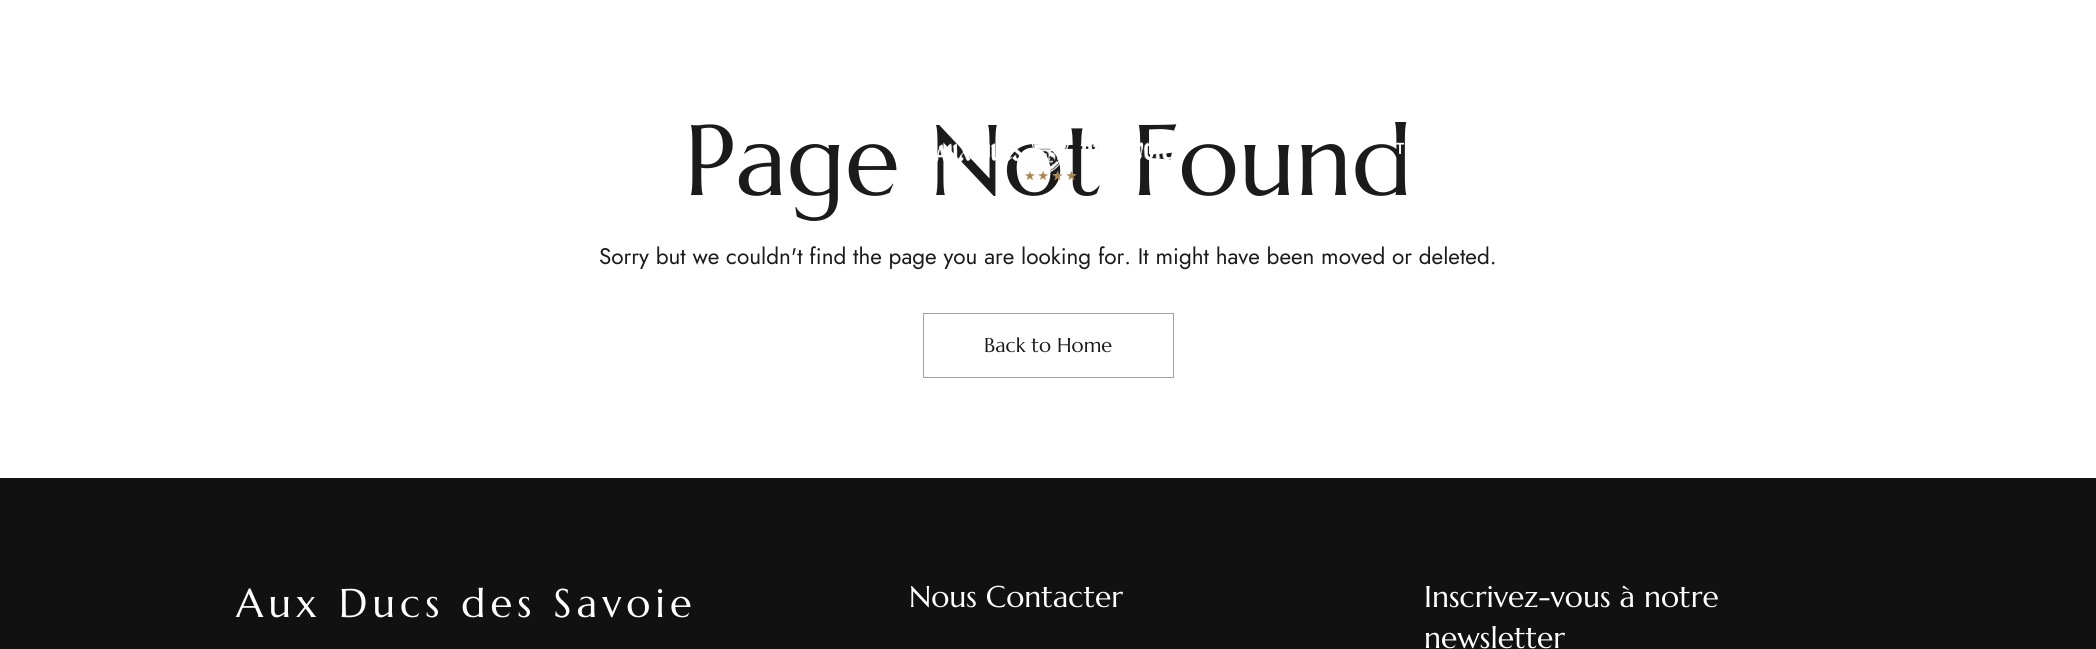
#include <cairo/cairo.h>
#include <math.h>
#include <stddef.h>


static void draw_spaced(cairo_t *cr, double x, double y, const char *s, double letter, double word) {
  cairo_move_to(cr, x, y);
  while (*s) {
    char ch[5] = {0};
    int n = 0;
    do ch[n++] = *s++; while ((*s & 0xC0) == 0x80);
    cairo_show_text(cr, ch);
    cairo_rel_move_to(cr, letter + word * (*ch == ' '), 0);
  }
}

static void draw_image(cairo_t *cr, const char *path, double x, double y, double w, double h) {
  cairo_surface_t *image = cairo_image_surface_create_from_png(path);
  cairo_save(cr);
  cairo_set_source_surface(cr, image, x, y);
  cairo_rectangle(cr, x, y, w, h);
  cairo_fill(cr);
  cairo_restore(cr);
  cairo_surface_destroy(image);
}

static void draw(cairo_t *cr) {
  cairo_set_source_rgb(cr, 1, 1, 1);
  cairo_paint(cr);
  cairo_rectangle(cr, 923.5, 313.5, 250, 64);
  cairo_set_source_rgb(cr, 185 / 255.0, 157 / 255.0, 117 / 255.0);
  cairo_set_line_width(cr, 1);
  cairo_stroke(cr);
  cairo_set_source_rgb(cr, 17 / 255.0, 17 / 255.0, 17 / 255.0);
  cairo_rectangle(cr, 0, 478, 2096, 171);
  cairo_fill(cr);
  cairo_select_font_face(cr, "Marcellus", CAIRO_FONT_SLANT_NORMAL, CAIRO_FONT_WEIGHT_NORMAL);
  cairo_set_font_size(cr, 100);
  cairo_set_source_rgb(cr, 26 / 255.0, 27 / 255.0, 26 / 255.0);
  cairo_move_to(cr, 684, 195);
  cairo_show_text(cr, "Page Not Found");
  cairo_select_font_face(cr, "Jost", CAIRO_FONT_SLANT_NORMAL, CAIRO_FONT_WEIGHT_NORMAL);
  cairo_set_font_size(cr, 22.5);
  cairo_move_to(cr, 599, 264);
  cairo_show_text(cr, "Sorry but we couldn't find the page you are looking for. It might have been moved or deleted.");
  cairo_select_font_face(cr, "Marcellus", CAIRO_FONT_SLANT_NORMAL, CAIRO_FONT_WEIGHT_NORMAL);
  cairo_set_font_size(cr, 20);
  cairo_move_to(cr, 984, 352);
  cairo_show_text(cr, "Back to Home");
  draw_image(cr, "images/1.png", 937, 135, 235, 46);
  cairo_select_font_face(cr, "Jost Medium", CAIRO_FONT_SLANT_NORMAL, CAIRO_FONT_WEIGHT_NORMAL);
  cairo_set_font_size(cr, 16);
  cairo_set_source_rgb(cr, 1, 1, 1);
  draw_spaced(cr, 1396, 154, "T", 1, 0);
  cairo_select_font_face(cr, "Marcellus", CAIRO_FONT_SLANT_NORMAL, CAIRO_FONT_WEIGHT_NORMAL);
  cairo_set_font_size(cr, 40);
  draw_spaced(cr, 236, 617, "Aux Ducs des Savoie", 5, 0);
  cairo_set_font_size(cr, 30);
  cairo_move_to(cr, 909, 607);
  cairo_show_text(cr, "Nous Contacter");
  cairo_move_to(cr, 1424, 607);
  cairo_show_text(cr, "Inscrivez-vous à notre");
  cairo_move_to(cr, 1424, 648);
  cairo_show_text(cr, "newsletter");
}

int main(void) {
  cairo_surface_t *surface = cairo_image_surface_create(CAIRO_FORMAT_RGB24, 2096, 649);
  cairo_t *cr = cairo_create(surface);
  cairo_font_options_t *options = cairo_font_options_create();
  cairo_font_options_set_hint_metrics(options, CAIRO_HINT_METRICS_OFF);
  cairo_font_options_set_hint_style(options, CAIRO_HINT_STYLE_NONE);
  cairo_set_font_options(cr, options);
  cairo_set_miter_limit(cr, 4);
  draw(cr);
  cairo_surface_write_to_png(surface, "out.png");
  cairo_font_options_destroy(options);
  cairo_destroy(cr);
  cairo_surface_destroy(surface);
  return 0;
}
